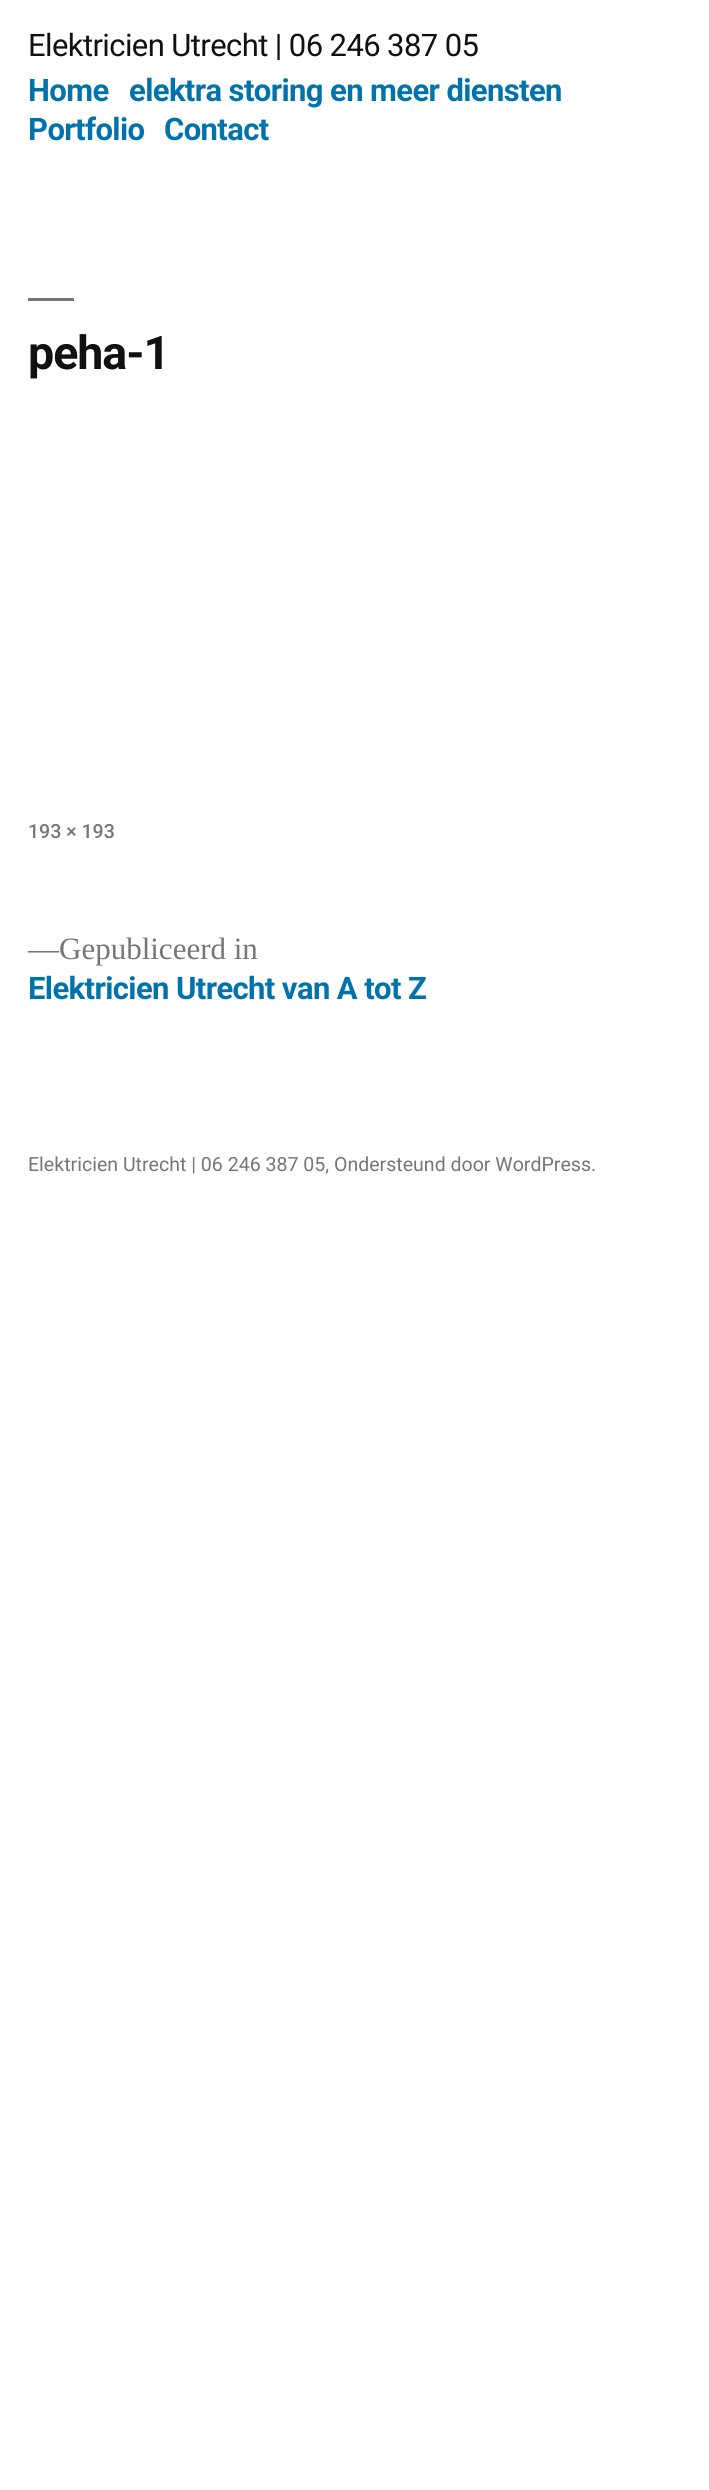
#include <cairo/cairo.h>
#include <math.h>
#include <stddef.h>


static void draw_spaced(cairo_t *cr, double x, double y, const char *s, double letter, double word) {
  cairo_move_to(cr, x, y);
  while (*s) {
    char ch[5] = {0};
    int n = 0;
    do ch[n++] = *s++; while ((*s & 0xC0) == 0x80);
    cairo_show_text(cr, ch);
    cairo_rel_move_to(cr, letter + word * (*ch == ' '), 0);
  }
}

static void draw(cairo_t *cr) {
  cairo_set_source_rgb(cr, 1, 1, 1);
  cairo_paint(cr);
  cairo_set_source_rgb(cr, 118 / 255.0, 118 / 255.0, 118 / 255.0);
  cairo_rectangle(cr, 28, 298, 46, 3);
  cairo_fill(cr);
  cairo_select_font_face(cr, "Roboto", CAIRO_FONT_SLANT_NORMAL, CAIRO_FONT_WEIGHT_NORMAL);
  cairo_set_font_size(cr, 31);
  cairo_set_source_rgb(cr, 17 / 255.0, 17 / 255.0, 17 / 255.0);
  draw_spaced(cr, 28, 56, "Elektricien Utrecht | 06 246 387 05", -0.6, 0);
  cairo_select_font_face(cr, "Roboto", CAIRO_FONT_SLANT_NORMAL, CAIRO_FONT_WEIGHT_BOLD);
  cairo_set_source_rgb(cr, 0, 115 / 255.0, 170 / 255.0);
  draw_spaced(cr, 28, 101, "Home", -0.6, 0);
  draw_spaced(cr, 129, 101, "elektra storing en meer diensten", -0.6, 0);
  draw_spaced(cr, 28, 140, "Portfolio", -0.6, 0);
  draw_spaced(cr, 164, 140, "Contact", -0.6, 0);
  cairo_set_font_size(cr, 46.5);
  cairo_set_source_rgb(cr, 17 / 255.0, 17 / 255.0, 17 / 255.0);
  draw_spaced(cr, 28, 369, "peha-1", -1, 0);
  cairo_select_font_face(cr, "Roboto Medium", CAIRO_FONT_SLANT_NORMAL, CAIRO_FONT_WEIGHT_NORMAL);
  cairo_set_font_size(cr, 19.55);
  cairo_set_source_rgb(cr, 118 / 255.0, 118 / 255.0, 118 / 255.0);
  cairo_move_to(cr, 28, 838);
  cairo_show_text(cr, "193 × 193");
  cairo_select_font_face(cr, "Liberation Serif", CAIRO_FONT_SLANT_NORMAL, CAIRO_FONT_WEIGHT_NORMAL);
  cairo_set_font_size(cr, 31);
  cairo_move_to(cr, 28, 959);
  cairo_show_text(cr, "—Gepubliceerd in");
  cairo_select_font_face(cr, "Roboto", CAIRO_FONT_SLANT_NORMAL, CAIRO_FONT_WEIGHT_BOLD);
  cairo_set_source_rgb(cr, 0, 115 / 255.0, 170 / 255.0);
  draw_spaced(cr, 28, 999, "Elektricien Utrecht van A tot Z", -0.6, 0);
  cairo_select_font_face(cr, "Roboto", CAIRO_FONT_SLANT_NORMAL, CAIRO_FONT_WEIGHT_NORMAL);
  cairo_set_font_size(cr, 19.55);
  cairo_set_source_rgb(cr, 118 / 255.0, 118 / 255.0, 118 / 255.0);
  cairo_move_to(cr, 28, 1171);
  cairo_show_text(cr, "Elektricien Utrecht | 06 246 387 05, Ondersteund door WordPress.");
}

int main(void) {
  cairo_surface_t *surface = cairo_image_surface_create(CAIRO_FORMAT_RGB24, 709, 2490);
  cairo_t *cr = cairo_create(surface);
  cairo_font_options_t *options = cairo_font_options_create();
  cairo_font_options_set_hint_metrics(options, CAIRO_HINT_METRICS_OFF);
  cairo_font_options_set_hint_style(options, CAIRO_HINT_STYLE_NONE);
  cairo_set_font_options(cr, options);
  cairo_set_miter_limit(cr, 4);
  draw(cr);
  cairo_surface_write_to_png(surface, "out.png");
  cairo_font_options_destroy(options);
  cairo_destroy(cr);
  cairo_surface_destroy(surface);
  return 0;
}
